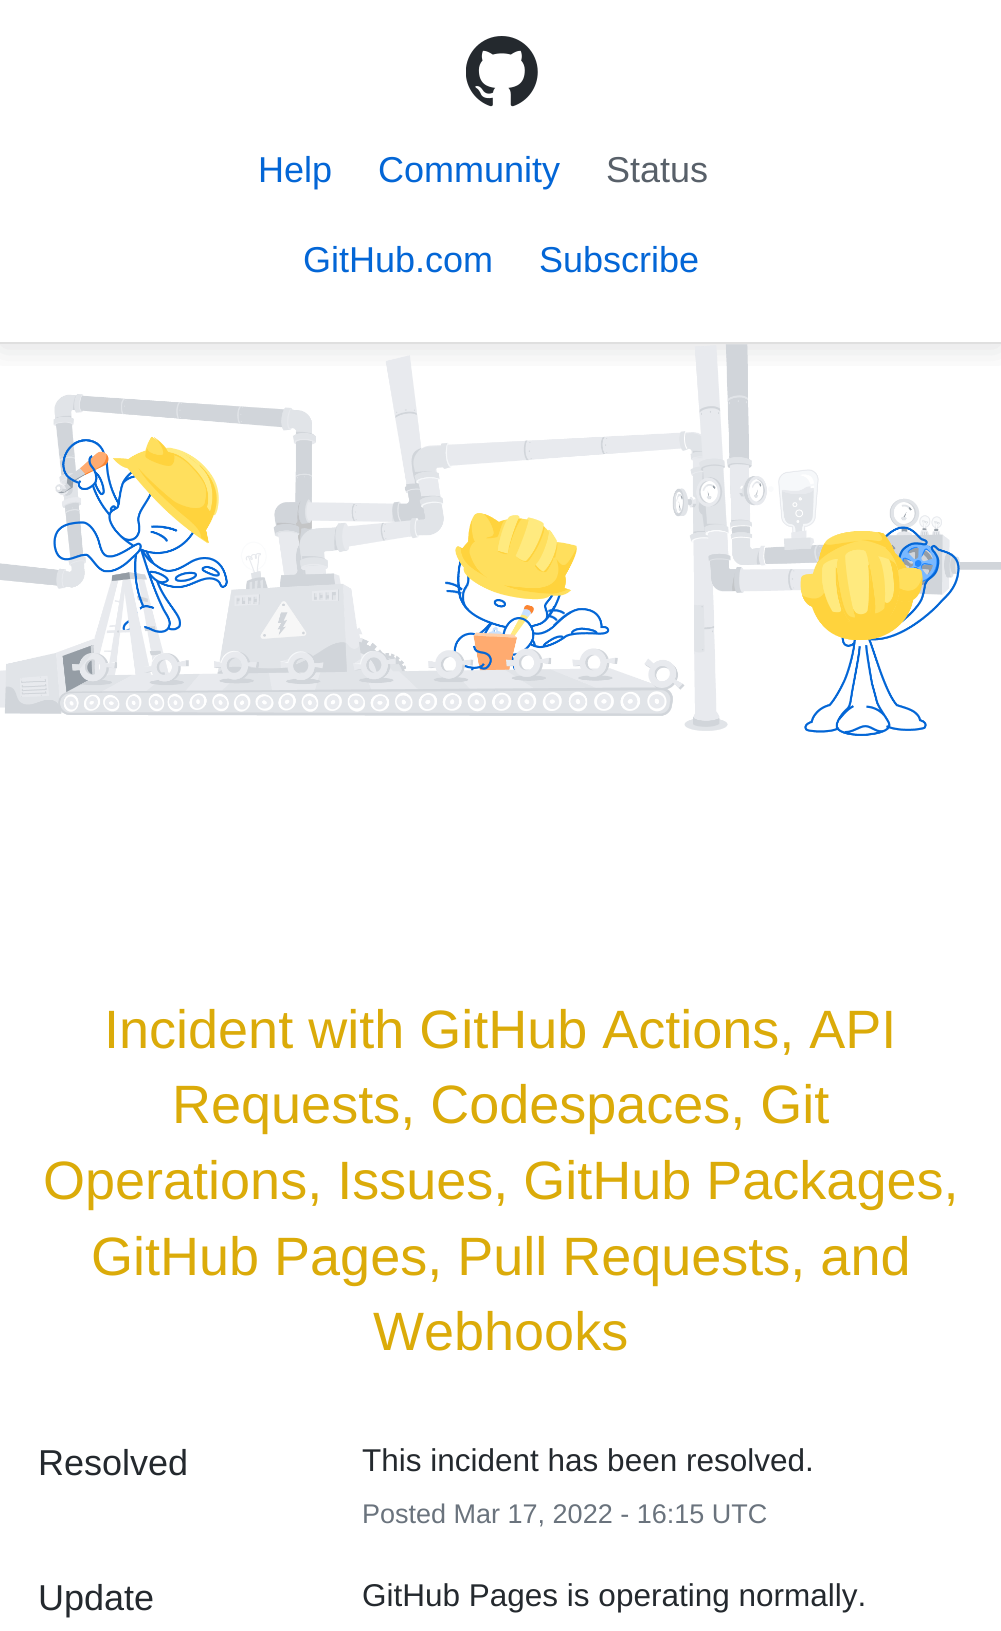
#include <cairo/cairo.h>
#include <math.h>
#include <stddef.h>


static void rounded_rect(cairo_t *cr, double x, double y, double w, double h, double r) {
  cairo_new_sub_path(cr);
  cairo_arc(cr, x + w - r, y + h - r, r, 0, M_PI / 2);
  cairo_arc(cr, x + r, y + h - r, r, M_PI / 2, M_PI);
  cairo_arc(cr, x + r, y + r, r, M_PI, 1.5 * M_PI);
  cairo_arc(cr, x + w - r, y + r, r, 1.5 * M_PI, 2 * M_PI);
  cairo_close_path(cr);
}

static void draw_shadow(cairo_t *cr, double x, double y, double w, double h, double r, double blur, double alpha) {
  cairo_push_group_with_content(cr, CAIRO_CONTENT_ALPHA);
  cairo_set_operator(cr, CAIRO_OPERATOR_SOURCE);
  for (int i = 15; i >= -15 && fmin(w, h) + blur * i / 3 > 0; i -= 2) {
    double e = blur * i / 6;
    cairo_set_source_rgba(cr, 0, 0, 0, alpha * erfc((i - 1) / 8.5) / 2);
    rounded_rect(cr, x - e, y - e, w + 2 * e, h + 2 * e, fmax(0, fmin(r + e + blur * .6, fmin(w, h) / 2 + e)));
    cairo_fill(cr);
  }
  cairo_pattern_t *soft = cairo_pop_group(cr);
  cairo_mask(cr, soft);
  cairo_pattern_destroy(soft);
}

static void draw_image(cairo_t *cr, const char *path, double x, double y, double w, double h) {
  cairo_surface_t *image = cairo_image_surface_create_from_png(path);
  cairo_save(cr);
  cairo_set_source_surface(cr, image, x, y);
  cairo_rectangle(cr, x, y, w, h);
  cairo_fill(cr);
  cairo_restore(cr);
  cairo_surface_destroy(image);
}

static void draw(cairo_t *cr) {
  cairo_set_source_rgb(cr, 1, 1, 1);
  cairo_paint(cr);
  cairo_save(cr);
  cairo_rectangle(cr, 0, 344, 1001, 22);
  cairo_clip(cr);
  cairo_set_source_rgb(cr, 27 / 255.0, 31 / 255.0, 35 / 255.0);
  draw_shadow(cr, 0, 2, 1001, 345, 0, 17, 0.15);
  cairo_restore(cr);
  cairo_set_source_rgb(cr, 223 / 255.0, 223 / 255.0, 223 / 255.0);
  cairo_rectangle(cr, 0, 342, 1001, 2);
  cairo_fill(cr);
  draw_image(cr, "images/1.png", 466, 36, 72, 71);
  draw_image(cr, "images/2.png", 0, 344, 1001, 392);
  cairo_select_font_face(cr, "Liberation Sans", CAIRO_FONT_SLANT_NORMAL, CAIRO_FONT_WEIGHT_NORMAL);
  cairo_set_font_size(cr, 36);
  cairo_set_source_rgb(cr, 3 / 255.0, 102 / 255.0, 214 / 255.0);
  cairo_move_to(cr, 258, 182);
  cairo_show_text(cr, "Help");
  cairo_move_to(cr, 378, 182);
  cairo_show_text(cr, "Community");
  cairo_set_source_rgb(cr, 88 / 255.0, 96 / 255.0, 105 / 255.0);
  cairo_move_to(cr, 606, 182);
  cairo_show_text(cr, "Status");
  cairo_set_source_rgb(cr, 3 / 255.0, 102 / 255.0, 214 / 255.0);
  cairo_move_to(cr, 303, 272);
  cairo_show_text(cr, "GitHub.com");
  cairo_move_to(cr, 539, 272);
  cairo_show_text(cr, "Subscribe");
  cairo_set_font_size(cr, 54);
  cairo_set_source_rgb(cr, 219 / 255.0, 171 / 255.0, 9 / 255.0);
  cairo_move_to(cr, 104, 1048);
  cairo_show_text(cr, "Incident with GitHub Actions, API");
  cairo_move_to(cr, 172, 1123);
  cairo_show_text(cr, "Requests, Codespaces, Git");
  cairo_move_to(cr, 43, 1199);
  cairo_show_text(cr, "Operations, Issues, GitHub Packages,");
  cairo_move_to(cr, 91, 1275);
  cairo_show_text(cr, "GitHub Pages, Pull Requests, and");
  cairo_move_to(cr, 373, 1350);
  cairo_show_text(cr, "Webhooks");
  cairo_set_font_size(cr, 36);
  cairo_set_source_rgb(cr, 36 / 255.0, 41 / 255.0, 46 / 255.0);
  cairo_move_to(cr, 38, 1475);
  cairo_show_text(cr, "Resolved");
  cairo_set_font_size(cr, 31.5);
  cairo_move_to(cr, 362, 1471);
  cairo_show_text(cr, "This incident has been resolved.");
  cairo_set_font_size(cr, 27);
  cairo_set_source_rgb(cr, 106 / 255.0, 115 / 255.0, 125 / 255.0);
  cairo_move_to(cr, 362, 1523);
  cairo_show_text(cr, "Posted Mar 17, 2022 - 16:15 UTC");
  cairo_set_font_size(cr, 36);
  cairo_set_source_rgb(cr, 36 / 255.0, 41 / 255.0, 46 / 255.0);
  cairo_move_to(cr, 38, 1610);
  cairo_show_text(cr, "Update");
  cairo_set_font_size(cr, 31.5);
  cairo_move_to(cr, 362, 1606);
  cairo_show_text(cr, "GitHub Pages is operating normally.");
}

int main(void) {
  cairo_surface_t *surface = cairo_image_surface_create(CAIRO_FORMAT_RGB24, 1001, 1631);
  cairo_t *cr = cairo_create(surface);
  cairo_font_options_t *options = cairo_font_options_create();
  cairo_font_options_set_hint_metrics(options, CAIRO_HINT_METRICS_OFF);
  cairo_font_options_set_hint_style(options, CAIRO_HINT_STYLE_NONE);
  cairo_set_font_options(cr, options);
  cairo_set_miter_limit(cr, 4);
  draw(cr);
  cairo_surface_write_to_png(surface, "out.png");
  cairo_font_options_destroy(options);
  cairo_destroy(cr);
  cairo_surface_destroy(surface);
  return 0;
}
